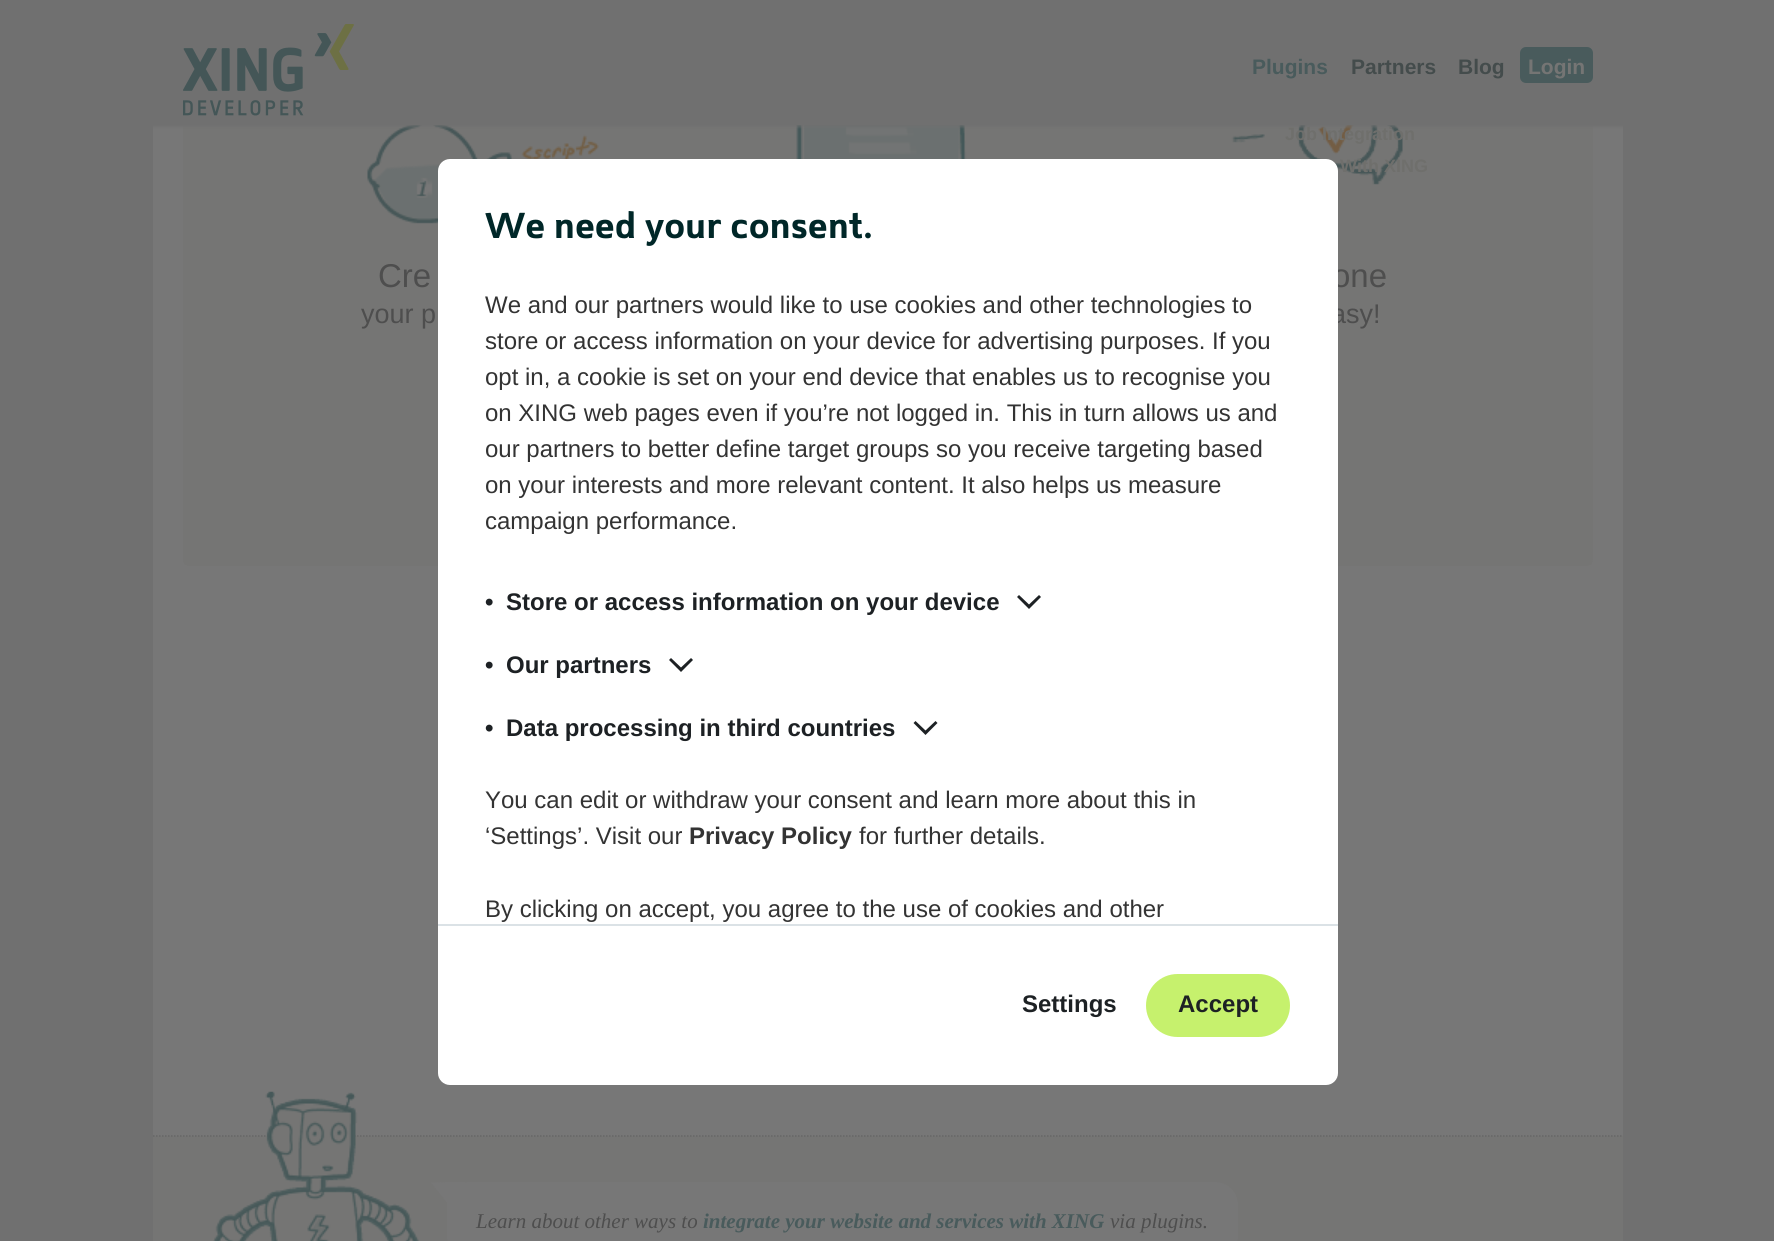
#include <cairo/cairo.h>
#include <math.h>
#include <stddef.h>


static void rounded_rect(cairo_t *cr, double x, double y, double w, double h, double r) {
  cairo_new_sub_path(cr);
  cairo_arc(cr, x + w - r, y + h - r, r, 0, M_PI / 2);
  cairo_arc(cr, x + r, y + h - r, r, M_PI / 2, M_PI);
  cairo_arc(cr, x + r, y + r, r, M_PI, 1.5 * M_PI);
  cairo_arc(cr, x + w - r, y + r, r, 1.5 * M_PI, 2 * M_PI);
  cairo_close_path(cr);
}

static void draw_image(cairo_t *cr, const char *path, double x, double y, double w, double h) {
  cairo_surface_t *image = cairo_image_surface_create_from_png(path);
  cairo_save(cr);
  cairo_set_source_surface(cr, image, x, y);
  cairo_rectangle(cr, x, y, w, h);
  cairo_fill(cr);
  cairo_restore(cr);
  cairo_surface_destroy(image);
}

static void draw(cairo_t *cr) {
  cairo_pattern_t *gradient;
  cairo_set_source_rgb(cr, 112 / 255.0, 112 / 255.0, 112 / 255.0);
  cairo_paint(cr);
  cairo_set_source_rgb(cr, 119 / 255.0, 119 / 255.0, 119 / 255.0);
  cairo_rectangle(cr, 153, 125, 1470, 1011);
  cairo_fill(cr);
  cairo_set_source_rgb(cr, 117 / 255.0, 117 / 255.0, 116 / 255.0);
  rounded_rect(cr, 183, -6, 1410, 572, 6);
  cairo_fill(cr);
  cairo_set_source_rgb(cr, 112 / 255.0, 112 / 255.0, 112 / 255.0);
  cairo_rectangle(cr, 183, 0, 1410, 125);
  cairo_fill(cr);
  draw_image(cr, "images/1.png", 183, 24, 171, 92);
  cairo_set_source_rgb(cr, 73 / 255.0, 91 / 255.0, 92 / 255.0);
  rounded_rect(cr, 1520, 47, 73, 36, 6);
  cairo_fill(cr);
  draw_image(cr, "images/2.png", 796, 125, 171, 34);
  draw_image(cr, "images/3.png", 367, 125, 232, 99);
  draw_image(cr, "images/4.png", 1231, 125, 172, 60);
  gradient = cairo_pattern_create_linear(888, 124, 888, 129);
  cairo_pattern_add_color_stop_rgba(gradient, 0, 112 / 255.0, 112 / 255.0, 112 / 255.0, 1);
  cairo_pattern_add_color_stop_rgba(gradient, 1, 112 / 255.0, 112 / 255.0, 112 / 255.0, 0);
  cairo_set_source(cr, gradient);
  cairo_pattern_destroy(gradient);
  cairo_rectangle(cr, 153, 125, 1470, 4);
  cairo_fill(cr);
  cairo_set_source_rgb(cr, 117 / 255.0, 117 / 255.0, 116 / 255.0);
  cairo_rectangle(cr, 153, 1136, 1470, 105);
  cairo_fill(cr);
  cairo_new_path(cr);
  cairo_move_to(cr, 153, 1136);
  cairo_line_to(cr, 1623, 1136);
  cairo_set_source_rgb(cr, 102 / 255.0, 102 / 255.0, 102 / 255.0);
  cairo_set_line_width(cr, 1.5);
  cairo_set_dash(cr, (double[]){1.5, 1.5}, 2, 0);
  cairo_stroke(cr);
  draw_image(cr, "images/5.png", 213, 1091, 206, 150);
  cairo_set_source_rgb(cr, 119 / 255.0, 119 / 255.0, 119 / 255.0);
  rounded_rect(cr, 447, 1182, 791, 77, 23);
  cairo_fill(cr);
  cairo_save(cr);
  cairo_rectangle(cr, 417, 1182, 1206, 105);
  cairo_clip(cr);
  cairo_new_path(cr);
  cairo_move_to(cr, 465, 1181.5);
  cairo_line_to(cr, 452, 1209);
  cairo_line_to(cr, 431, 1182.5);
  cairo_close_path(cr);
  cairo_fill(cr);
  cairo_restore(cr);
  cairo_select_font_face(cr, "Liberation Sans", CAIRO_FONT_SLANT_NORMAL, CAIRO_FONT_WEIGHT_BOLD);
  cairo_set_font_size(cr, 21);
  cairo_set_source_rgb(cr, 73 / 255.0, 91 / 255.0, 92 / 255.0);
  cairo_move_to(cr, 1252, 74);
  cairo_show_text(cr, "Plugins");
  cairo_set_source_rgb(cr, 68 / 255.0, 76 / 255.0, 76 / 255.0);
  cairo_move_to(cr, 1458, 74);
  cairo_show_text(cr, "Blog");
  cairo_set_source_rgb(cr, 117 / 255.0, 117 / 255.0, 116 / 255.0);
  cairo_move_to(cr, 1528, 74);
  cairo_show_text(cr, "Login");
  cairo_set_source_rgb(cr, 68 / 255.0, 76 / 255.0, 76 / 255.0);
  cairo_move_to(cr, 1351, 74);
  cairo_show_text(cr, "Partners");
  cairo_set_font_size(cr, 18);
  cairo_set_source_rgb(cr, 111 / 255.0, 111 / 255.0, 108 / 255.0);
  cairo_move_to(cr, 1285, 140);
  cairo_show_text(cr, "Job Integration");
  cairo_move_to(cr, 1340, 172);
  cairo_show_text(cr, "With XING");
  cairo_select_font_face(cr, "Liberation Sans", CAIRO_FONT_SLANT_NORMAL, CAIRO_FONT_WEIGHT_NORMAL);
  cairo_set_font_size(cr, 33);
  cairo_set_source_rgb(cr, 78 / 255.0, 78 / 255.0, 78 / 255.0);
  cairo_move_to(cr, 378, 287);
  cairo_show_text(cr, "Cre");
  cairo_set_font_size(cr, 27);
  cairo_move_to(cr, 361, 323);
  cairo_show_text(cr, "your p");
  cairo_set_font_size(cr, 33);
  cairo_move_to(cr, 1332, 287);
  cairo_show_text(cr, "one");
  cairo_set_font_size(cr, 27);
  cairo_move_to(cr, 1331, 323);
  cairo_show_text(cr, "asy!");
  cairo_select_font_face(cr, "Liberation Serif", CAIRO_FONT_SLANT_ITALIC, CAIRO_FONT_WEIGHT_NORMAL);
  cairo_set_font_size(cr, 21);
  cairo_move_to(cr, 476, 1228);
  cairo_show_text(cr, "Learn about other ways to");
  cairo_select_font_face(cr, "Liberation Serif", CAIRO_FONT_SLANT_ITALIC, CAIRO_FONT_WEIGHT_BOLD);
  cairo_set_source_rgb(cr, 73 / 255.0, 91 / 255.0, 92 / 255.0);
  cairo_move_to(cr, 703, 1228);
  cairo_show_text(cr, "integrate your website and services with XING");
  cairo_select_font_face(cr, "Liberation Serif", CAIRO_FONT_SLANT_ITALIC, CAIRO_FONT_WEIGHT_NORMAL);
  cairo_set_source_rgb(cr, 78 / 255.0, 78 / 255.0, 78 / 255.0);
  cairo_move_to(cr, 1110, 1228);
  cairo_show_text(cr, "via plugins.");
  cairo_set_source_rgb(cr, 1, 1, 1);
  rounded_rect(cr, 438, 159, 900, 926, 12);
  cairo_fill(cr);
  cairo_select_font_face(cr, "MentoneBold", CAIRO_FONT_SLANT_NORMAL, CAIRO_FONT_WEIGHT_BOLD);
  cairo_set_font_size(cr, 36);
  cairo_set_source_rgb(cr, 0, 39 / 255.0, 40 / 255.0);
  cairo_move_to(cr, 485, 238);
  cairo_show_text(cr, "We need your consent.");
  cairo_select_font_face(cr, "Liberation Sans", CAIRO_FONT_SLANT_NORMAL, CAIRO_FONT_WEIGHT_NORMAL);
  cairo_set_font_size(cr, 24);
  cairo_set_source_rgb(cr, 51 / 255.0, 51 / 255.0, 51 / 255.0);
  cairo_move_to(cr, 485, 313);
  cairo_show_text(cr, "We and our partners would like to use cookies and other technologies to");
  cairo_move_to(cr, 485, 349);
  cairo_show_text(cr, "store or access information on your device for advertising purposes. If you");
  cairo_move_to(cr, 485, 385);
  cairo_show_text(cr, "opt in, a cookie is set on your end device that enables us to recognise you");
  cairo_move_to(cr, 485, 421);
  cairo_show_text(cr, "on XING web pages even if you’re not logged in. This in turn allows us and");
  cairo_move_to(cr, 485, 457);
  cairo_show_text(cr, "our partners to better define target groups so you receive targeting based");
  cairo_move_to(cr, 485, 493);
  cairo_show_text(cr, "on your interests and more relevant content. It also helps us measure");
  cairo_move_to(cr, 485, 529);
  cairo_show_text(cr, "campaign performance.");
  cairo_select_font_face(cr, "Liberation Sans", CAIRO_FONT_SLANT_NORMAL, CAIRO_FONT_WEIGHT_BOLD);
  cairo_set_source_rgb(cr, 29 / 255.0, 33 / 255.0, 36 / 255.0);
  cairo_move_to(cr, 485, 610);
  cairo_show_text(cr, "•");
  cairo_move_to(cr, 506, 610);
  cairo_show_text(cr, "Store or access information on your device");
  cairo_new_path(cr);
  cairo_move_to(cr, 1019, 595);
  cairo_line_to(cr, 1017, 597);
  cairo_line_to(cr, 1029, 609);
  cairo_line_to(cr, 1041, 597);
  cairo_line_to(cr, 1039, 595);
  cairo_line_to(cr, 1029, 604.5);
  cairo_close_path(cr);
  cairo_fill(cr);
  cairo_move_to(cr, 485, 673);
  cairo_show_text(cr, "•");
  cairo_move_to(cr, 506, 673);
  cairo_show_text(cr, "Our partners");
  cairo_new_path(cr);
  cairo_move_to(cr, 671, 658);
  cairo_line_to(cr, 669, 660);
  cairo_line_to(cr, 681, 672);
  cairo_line_to(cr, 693, 660);
  cairo_line_to(cr, 691, 658);
  cairo_line_to(cr, 681, 667.5);
  cairo_close_path(cr);
  cairo_fill(cr);
  cairo_move_to(cr, 485, 736);
  cairo_show_text(cr, "•");
  cairo_move_to(cr, 506, 736);
  cairo_show_text(cr, "Data processing in third countries");
  cairo_new_path(cr);
  cairo_move_to(cr, 915.5, 721);
  cairo_line_to(cr, 913.5, 723);
  cairo_line_to(cr, 925.5, 735);
  cairo_line_to(cr, 937.5, 723);
  cairo_line_to(cr, 935.5, 721);
  cairo_line_to(cr, 925.5, 730.5);
  cairo_close_path(cr);
  cairo_fill(cr);
  cairo_select_font_face(cr, "Liberation Sans", CAIRO_FONT_SLANT_NORMAL, CAIRO_FONT_WEIGHT_NORMAL);
  cairo_set_source_rgb(cr, 51 / 255.0, 51 / 255.0, 51 / 255.0);
  cairo_move_to(cr, 485, 808);
  cairo_show_text(cr, "You can edit or withdraw your consent and learn more about this in");
  cairo_move_to(cr, 485, 844);
  cairo_show_text(cr, "‘Settings’. Visit our");
  cairo_select_font_face(cr, "Liberation Sans", CAIRO_FONT_SLANT_NORMAL, CAIRO_FONT_WEIGHT_BOLD);
  cairo_move_to(cr, 689, 844);
  cairo_show_text(cr, "Privacy Policy");
  cairo_select_font_face(cr, "Liberation Sans", CAIRO_FONT_SLANT_NORMAL, CAIRO_FONT_WEIGHT_NORMAL);
  cairo_move_to(cr, 859, 844);
  cairo_show_text(cr, "for further details.");
  cairo_move_to(cr, 485, 917);
  cairo_show_text(cr, "By clicking on accept, you agree to the use of cookies and other");
  cairo_set_source_rgb(cr, 219 / 255.0, 226 / 255.0, 230 / 255.0);
  cairo_rectangle(cr, 438, 924, 900, 2);
  cairo_fill(cr);
  cairo_select_font_face(cr, "Liberation Sans", CAIRO_FONT_SLANT_NORMAL, CAIRO_FONT_WEIGHT_BOLD);
  cairo_set_source_rgb(cr, 29 / 255.0, 33 / 255.0, 36 / 255.0);
  cairo_move_to(cr, 1022, 1012);
  cairo_show_text(cr, "Settings");
  cairo_set_source_rgb(cr, 198 / 255.0, 241 / 255.0, 109 / 255.0);
  rounded_rect(cr, 1146, 974, 144, 63, 31.5);
  cairo_fill(cr);
  cairo_set_source_rgb(cr, 29 / 255.0, 33 / 255.0, 36 / 255.0);
  cairo_move_to(cr, 1178, 1012);
  cairo_show_text(cr, "Accept");
}

int main(void) {
  cairo_surface_t *surface = cairo_image_surface_create(CAIRO_FORMAT_RGB24, 1774, 1241);
  cairo_t *cr = cairo_create(surface);
  cairo_font_options_t *options = cairo_font_options_create();
  cairo_font_options_set_hint_metrics(options, CAIRO_HINT_METRICS_OFF);
  cairo_font_options_set_hint_style(options, CAIRO_HINT_STYLE_NONE);
  cairo_set_font_options(cr, options);
  cairo_set_miter_limit(cr, 4);
  draw(cr);
  cairo_surface_write_to_png(surface, "out.png");
  cairo_font_options_destroy(options);
  cairo_destroy(cr);
  cairo_surface_destroy(surface);
  return 0;
}
